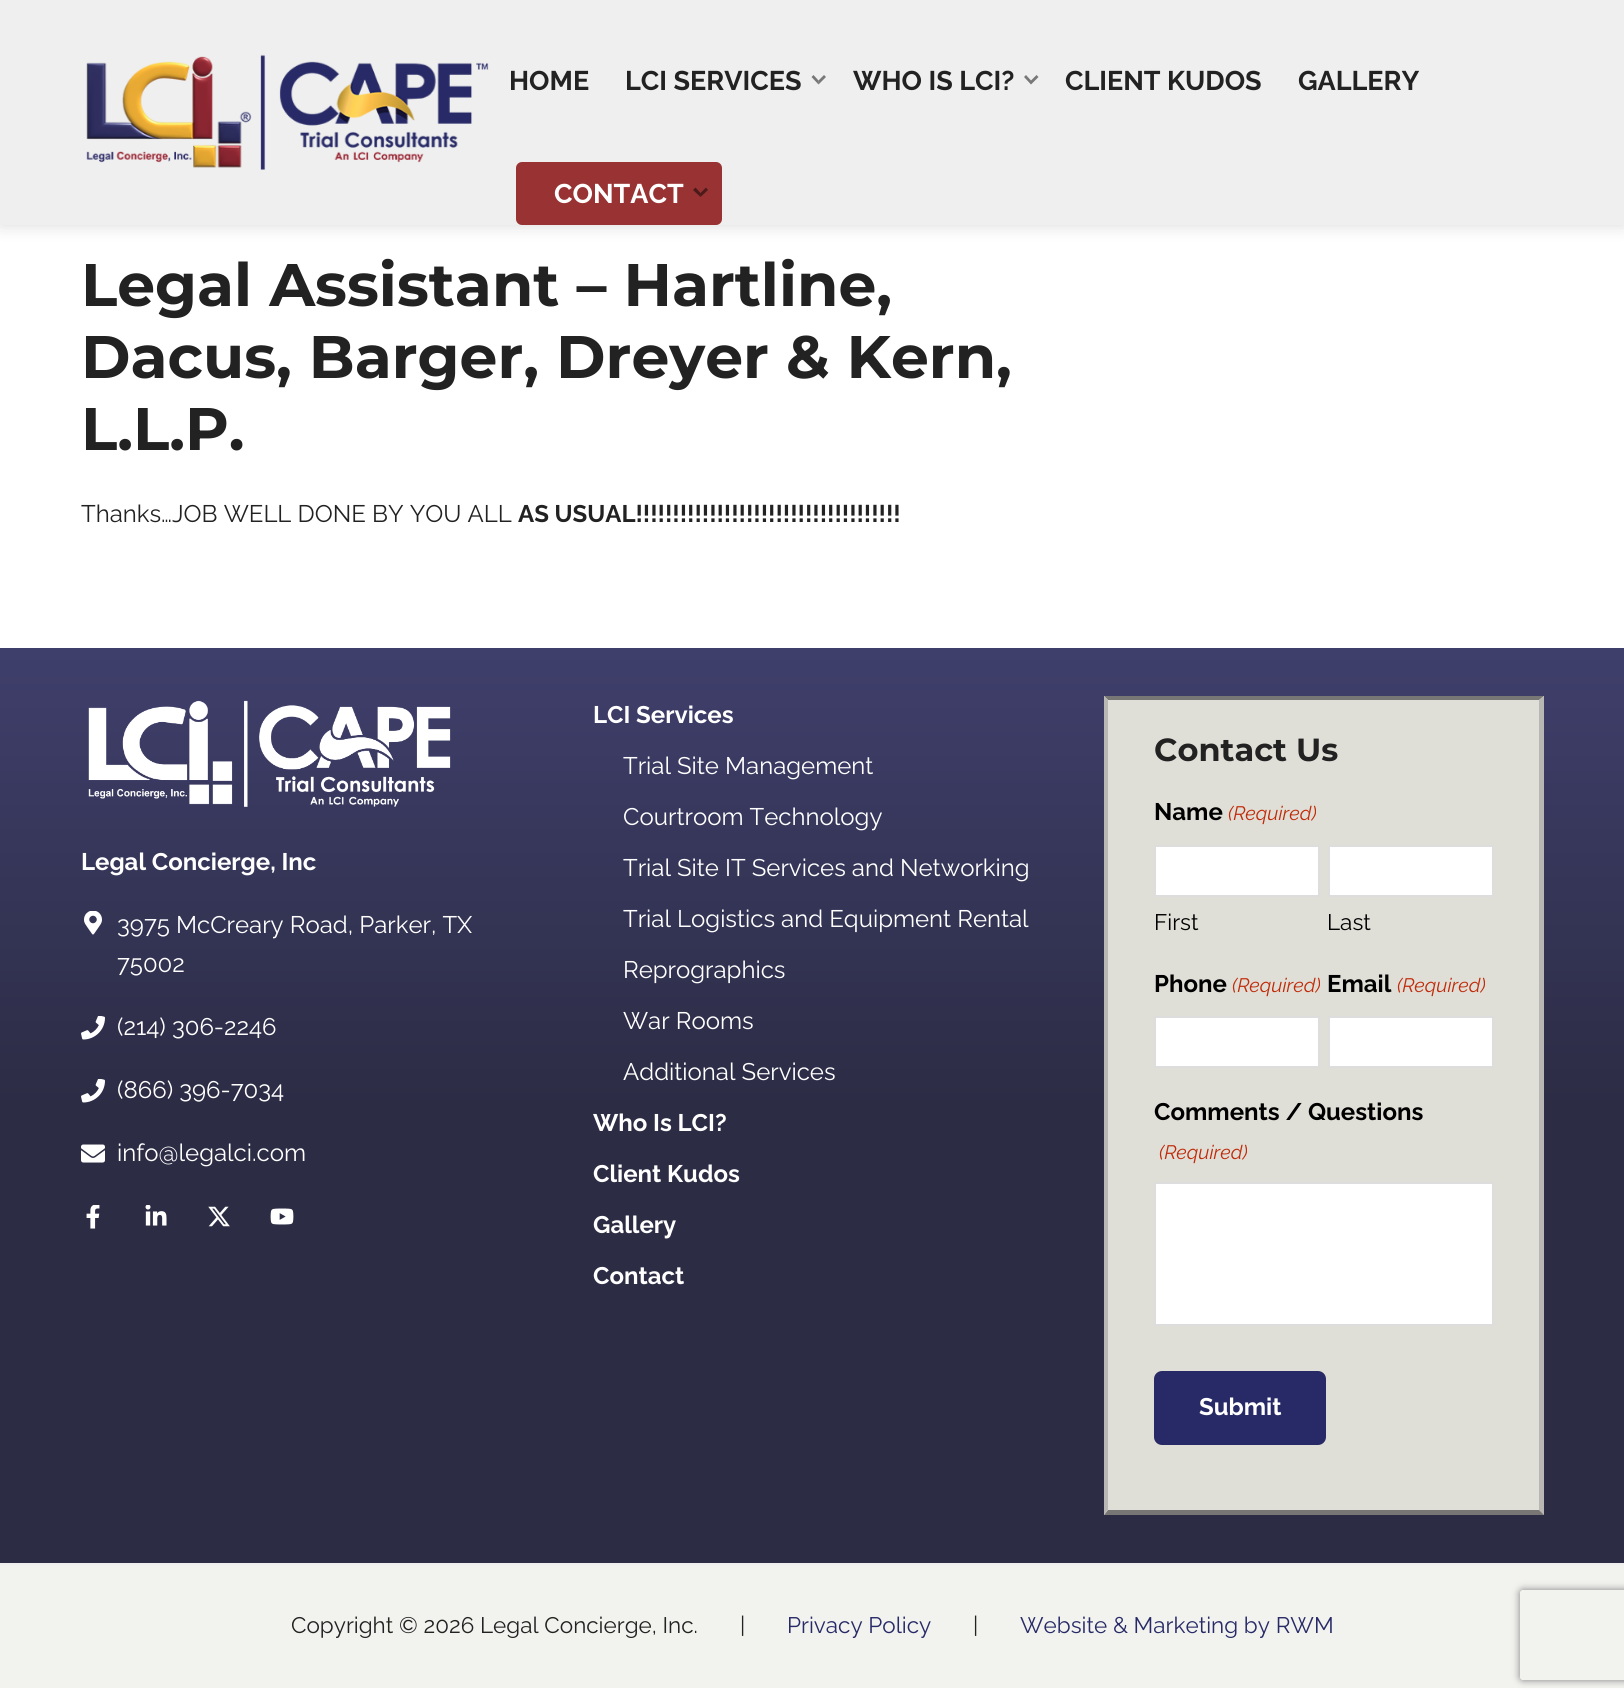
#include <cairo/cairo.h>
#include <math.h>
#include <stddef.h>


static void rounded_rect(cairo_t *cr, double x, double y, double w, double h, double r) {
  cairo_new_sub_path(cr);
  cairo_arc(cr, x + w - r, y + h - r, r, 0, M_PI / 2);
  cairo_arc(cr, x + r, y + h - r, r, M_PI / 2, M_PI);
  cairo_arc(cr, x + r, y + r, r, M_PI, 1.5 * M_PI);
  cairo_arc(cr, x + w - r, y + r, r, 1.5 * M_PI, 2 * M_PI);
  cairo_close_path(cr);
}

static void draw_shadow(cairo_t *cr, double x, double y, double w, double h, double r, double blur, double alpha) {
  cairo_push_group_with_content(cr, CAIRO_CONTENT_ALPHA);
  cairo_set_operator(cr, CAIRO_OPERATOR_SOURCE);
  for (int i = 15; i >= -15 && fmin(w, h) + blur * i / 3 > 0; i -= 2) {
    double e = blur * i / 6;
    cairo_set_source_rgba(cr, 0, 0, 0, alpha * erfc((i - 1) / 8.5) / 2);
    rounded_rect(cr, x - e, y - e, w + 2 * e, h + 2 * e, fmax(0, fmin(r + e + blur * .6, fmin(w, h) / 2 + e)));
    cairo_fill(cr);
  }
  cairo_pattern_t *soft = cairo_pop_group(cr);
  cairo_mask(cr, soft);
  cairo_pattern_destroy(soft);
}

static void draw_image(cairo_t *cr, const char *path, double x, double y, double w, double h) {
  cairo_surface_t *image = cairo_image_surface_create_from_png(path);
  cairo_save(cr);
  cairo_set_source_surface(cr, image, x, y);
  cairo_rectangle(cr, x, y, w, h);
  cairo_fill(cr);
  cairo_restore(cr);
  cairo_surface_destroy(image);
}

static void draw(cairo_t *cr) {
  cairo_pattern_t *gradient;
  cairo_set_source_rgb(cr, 1, 1, 1);
  cairo_paint(cr);
  cairo_set_source_rgb(cr, 0, 0, 0);
  draw_shadow(cr, 0, 0, 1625, 225, 0, 9, 0.15);
  cairo_set_source_rgb(cr, 239 / 255.0, 239 / 255.0, 239 / 255.0);
  cairo_rectangle(cr, 0, 0, 1624, 225);
  cairo_fill(cr);
  draw_image(cr, "images/1.png", 86, 54, 403, 116);
  cairo_set_source_rgb(cr, 120 / 255.0, 120 / 255.0, 120 / 255.0);
  cairo_new_path(cr);
  cairo_move_to(cr, 826, 77);
  cairo_line_to(cr, 818.5, 84.5);
  cairo_line_to(cr, 818.5, 80.5);
  cairo_line_to(cr, 824, 75);
  cairo_close_path(cr);
  cairo_fill(cr);
  cairo_set_source_rgba(cr, 0, 0, 0, 0.5);
  cairo_new_path(cr);
  cairo_move_to(cr, 818.5, 84.5);
  cairo_line_to(cr, 811.5, 77);
  cairo_line_to(cr, 813.5, 75);
  cairo_line_to(cr, 818.5, 80.5);
  cairo_close_path(cr);
  cairo_fill(cr);
  cairo_set_source_rgb(cr, 120 / 255.0, 120 / 255.0, 120 / 255.0);
  cairo_new_path(cr);
  cairo_move_to(cr, 1038.5, 77);
  cairo_line_to(cr, 1031, 84.5);
  cairo_line_to(cr, 1031, 80.5);
  cairo_line_to(cr, 1036.5, 75);
  cairo_close_path(cr);
  cairo_move_to(cr, 1031, 84.5);
  cairo_line_to(cr, 1024, 77);
  cairo_line_to(cr, 1026, 75);
  cairo_line_to(cr, 1031, 80.5);
  cairo_close_path(cr);
  cairo_fill(cr);
  cairo_set_source_rgb(cr, 153 / 255.0, 51 / 255.0, 51 / 255.0);
  rounded_rect(cr, 516, 162, 206, 63, 6);
  cairo_fill(cr);
  cairo_set_source_rgb(cr, 77 / 255.0, 26 / 255.0, 26 / 255.0);
  cairo_new_path(cr);
  cairo_move_to(cr, 708, 190);
  cairo_line_to(cr, 700.5, 197);
  cairo_line_to(cr, 700.5, 193);
  cairo_line_to(cr, 706, 187.5);
  cairo_close_path(cr);
  cairo_fill(cr);
  cairo_set_source_rgba(cr, 0, 0, 0, 0.5);
  cairo_new_path(cr);
  cairo_move_to(cr, 700.5, 197);
  cairo_line_to(cr, 693, 190);
  cairo_line_to(cr, 695.5, 187.5);
  cairo_line_to(cr, 700.5, 193);
  cairo_close_path(cr);
  cairo_fill(cr);
  gradient = cairo_pattern_create_linear(812, 648, 812, 1563);
  cairo_pattern_add_color_stop_rgba(gradient, 0, 63 / 255.0, 63 / 255.0, 108 / 255.0, 1);
  cairo_pattern_add_color_stop_rgba(gradient, 0.5, 44 / 255.0, 44 / 255.0, 69 / 255.0, 1);
  cairo_set_source(cr, gradient);
  cairo_pattern_destroy(gradient);
  cairo_rectangle(cr, 0, 648, 1624, 915);
  cairo_fill(cr);
  draw_image(cr, "images/2.png", 88, 700, 363, 107);
  draw_image(cr, "images/3.png", 84, 911, 18, 24);
  draw_image(cr, "images/4.png", 81, 1016, 24, 24);
  draw_image(cr, "images/5.png", 81, 1079, 24, 24);
  draw_image(cr, "images/6.png", 81, 1144, 24, 19);
  draw_image(cr, "images/7.png", 86, 1205, 14, 24);
  draw_image(cr, "images/8.png", 145, 1205, 22, 21);
  draw_image(cr, "images/9.png", 208, 1206, 22, 21);
  draw_image(cr, "images/10.png", 270, 1208, 24, 17);
  cairo_set_source_rgb(cr, 224 / 255.0, 223 / 255.0, 215 / 255.0);
  cairo_rectangle(cr, 1104, 696, 440, 819);
  cairo_fill(cr);
  cairo_set_source_rgb(cr, 120 / 255.0, 119 / 255.0, 117 / 255.0);
  cairo_new_path(cr);
  cairo_move_to(cr, 1104, 696);
  cairo_line_to(cr, 1544, 696);
  cairo_line_to(cr, 1539, 700);
  cairo_line_to(cr, 1108, 700);
  cairo_close_path(cr);
  cairo_fill(cr);
  cairo_set_source_rgb(cr, 184 / 255.0, 183 / 255.0, 179 / 255.0);
  cairo_new_path(cr);
  cairo_move_to(cr, 1544, 696);
  cairo_line_to(cr, 1544, 1515);
  cairo_line_to(cr, 1539, 1510);
  cairo_line_to(cr, 1539, 700);
  cairo_close_path(cr);
  cairo_fill(cr);
  cairo_set_source_rgb(cr, 120 / 255.0, 119 / 255.0, 117 / 255.0);
  cairo_new_path(cr);
  cairo_move_to(cr, 1544, 1515);
  cairo_line_to(cr, 1104, 1515);
  cairo_line_to(cr, 1108, 1510);
  cairo_line_to(cr, 1539, 1510);
  cairo_close_path(cr);
  cairo_fill(cr);
  cairo_set_source_rgb(cr, 184 / 255.0, 183 / 255.0, 179 / 255.0);
  cairo_new_path(cr);
  cairo_move_to(cr, 1104, 1515);
  cairo_line_to(cr, 1104, 696);
  cairo_line_to(cr, 1108, 700);
  cairo_line_to(cr, 1108, 1510);
  cairo_close_path(cr);
  cairo_fill(cr);
  cairo_set_source_rgb(cr, 1, 1, 1);
  cairo_rectangle(cr, 1155, 846, 164, 50);
  cairo_fill_preserve(cr);
  cairo_set_source_rgb(cr, 221 / 255.0, 221 / 255.0, 221 / 255.0);
  cairo_stroke(cr);
  cairo_set_source_rgb(cr, 1, 1, 1);
  cairo_rectangle(cr, 1329, 846, 164, 50);
  cairo_fill_preserve(cr);
  cairo_set_source_rgb(cr, 221 / 255.0, 221 / 255.0, 221 / 255.0);
  cairo_stroke(cr);
  cairo_set_source_rgb(cr, 1, 1, 1);
  cairo_rectangle(cr, 1155, 1017, 164, 50);
  cairo_fill_preserve(cr);
  cairo_set_source_rgb(cr, 221 / 255.0, 221 / 255.0, 221 / 255.0);
  cairo_stroke(cr);
  cairo_set_source_rgb(cr, 1, 1, 1);
  cairo_rectangle(cr, 1329, 1017, 164, 50);
  cairo_fill_preserve(cr);
  cairo_set_source_rgb(cr, 221 / 255.0, 221 / 255.0, 221 / 255.0);
  cairo_stroke(cr);
  cairo_set_source_rgb(cr, 1, 1, 1);
  cairo_rectangle(cr, 1155, 1183, 338, 142);
  cairo_fill_preserve(cr);
  cairo_set_source_rgb(cr, 221 / 255.0, 221 / 255.0, 221 / 255.0);
  cairo_stroke(cr);
  cairo_set_source_rgb(cr, 39 / 255.0, 42 / 255.0, 102 / 255.0);
  rounded_rect(cr, 1154, 1371, 172, 74, 8);
  cairo_fill(cr);
  cairo_set_source_rgb(cr, 242 / 255.0, 242 / 255.0, 239 / 255.0);
  cairo_rectangle(cr, 0, 1565, 1624, 123);
  cairo_fill(cr);
  cairo_set_source_rgb(cr, 238 / 255.0, 238 / 255.0, 238 / 255.0);
  cairo_rectangle(cr, 0, 1563, 1624, 2);
  cairo_fill(cr);
  cairo_save(cr);
  cairo_set_fill_rule(cr, CAIRO_FILL_RULE_EVEN_ODD);
  cairo_new_path(cr);
  cairo_move_to(cr, 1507, 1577);
  cairo_line_to(cr, 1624, 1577);
  cairo_line_to(cr, 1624, 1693);
  cairo_line_to(cr, 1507, 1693);
  cairo_close_path(cr);
  cairo_move_to(cr, 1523, 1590);
  cairo_line_to(cr, 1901, 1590);
  cairo_curve_to(cr, 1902.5, 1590, 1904, 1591.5, 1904, 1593);
  cairo_line_to(cr, 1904, 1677);
  cairo_curve_to(cr, 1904, 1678.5, 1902.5, 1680, 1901, 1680);
  cairo_line_to(cr, 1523, 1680);
  cairo_curve_to(cr, 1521.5, 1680, 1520, 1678.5, 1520, 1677);
  cairo_line_to(cr, 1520, 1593);
  cairo_curve_to(cr, 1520, 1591.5, 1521.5, 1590, 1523, 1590);
  cairo_close_path(cr);
  cairo_clip(cr);
  cairo_set_source_rgb(cr, 128 / 255.0, 128 / 255.0, 128 / 255.0);
  draw_shadow(cr, 1520, 1590, 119, 90, 3, 4, 1);
  cairo_restore(cr);
  cairo_select_font_face(cr, "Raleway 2 Thin", CAIRO_FONT_SLANT_NORMAL, CAIRO_FONT_WEIGHT_NORMAL);
  cairo_set_font_size(cr, 27);
  cairo_set_source_rgb(cr, 34 / 255.0, 34 / 255.0, 34 / 255.0);
  cairo_move_to(cr, 509, 90);
  cairo_show_text(cr, "HOME");
  cairo_move_to(cr, 625, 90);
  cairo_show_text(cr, "LCI SERVICES");
  cairo_move_to(cr, 853, 90);
  cairo_show_text(cr, "WHO IS LCI?");
  cairo_move_to(cr, 1065, 90);
  cairo_show_text(cr, "CLIENT KUDOS");
  cairo_move_to(cr, 1298, 90);
  cairo_show_text(cr, "GALLERY");
  cairo_set_source_rgb(cr, 1, 1, 1);
  cairo_move_to(cr, 554, 203);
  cairo_show_text(cr, "CONTACT");
  cairo_select_font_face(cr, "Montserrat Thin", CAIRO_FONT_SLANT_NORMAL, CAIRO_FONT_WEIGHT_NORMAL);
  cairo_set_font_size(cr, 60);
  cairo_set_source_rgb(cr, 34 / 255.0, 34 / 255.0, 34 / 255.0);
  cairo_move_to(cr, 81, 306);
  cairo_show_text(cr, "Legal Assistant – Hartline,");
  cairo_move_to(cr, 81, 378);
  cairo_show_text(cr, "Dacus, Barger, Dreyer & Kern,");
  cairo_move_to(cr, 81, 450);
  cairo_show_text(cr, "L.L.P.");
  cairo_select_font_face(cr, "Raleway Thin", CAIRO_FONT_SLANT_NORMAL, CAIRO_FONT_WEIGHT_NORMAL);
  cairo_set_font_size(cr, 24);
  cairo_move_to(cr, 81, 522);
  cairo_show_text(cr, "Thanks…JOB WELL DONE BY YOU ALL");
  cairo_select_font_face(cr, "Raleway 2 Thin", CAIRO_FONT_SLANT_NORMAL, CAIRO_FONT_WEIGHT_NORMAL);
  cairo_move_to(cr, 518, 522);
  cairo_show_text(cr, "AS USUAL!!!!!!!!!!!!!!!!!!!!!!!!!!!!!!!!!!!!");
  cairo_set_source_rgb(cr, 1, 1, 1);
  cairo_move_to(cr, 81, 870);
  cairo_show_text(cr, "Legal Concierge, Inc");
  cairo_select_font_face(cr, "Raleway Thin", CAIRO_FONT_SLANT_NORMAL, CAIRO_FONT_WEIGHT_NORMAL);
  cairo_move_to(cr, 117, 933);
  cairo_show_text(cr, "3975 McCreary Road, Parker, TX");
  cairo_move_to(cr, 117, 972);
  cairo_show_text(cr, "75002");
  cairo_move_to(cr, 117, 1035);
  cairo_show_text(cr, "(214) 306-2246");
  cairo_move_to(cr, 117, 1098);
  cairo_show_text(cr, "(866) 396-7034");
  cairo_move_to(cr, 117, 1161);
  cairo_show_text(cr, "info@legalci.com");
  cairo_select_font_face(cr, "Raleway 2 Thin", CAIRO_FONT_SLANT_NORMAL, CAIRO_FONT_WEIGHT_NORMAL);
  cairo_move_to(cr, 593, 723);
  cairo_show_text(cr, "LCI Services");
  cairo_select_font_face(cr, "Raleway Thin", CAIRO_FONT_SLANT_NORMAL, CAIRO_FONT_WEIGHT_NORMAL);
  cairo_move_to(cr, 623, 774);
  cairo_show_text(cr, "Trial Site Management");
  cairo_move_to(cr, 623, 825);
  cairo_show_text(cr, "Courtroom Technology");
  cairo_move_to(cr, 623, 876);
  cairo_show_text(cr, "Trial Site IT Services and Networking");
  cairo_move_to(cr, 623, 927);
  cairo_show_text(cr, "Trial Logistics and Equipment Rental");
  cairo_move_to(cr, 623, 978);
  cairo_show_text(cr, "Reprographics");
  cairo_move_to(cr, 623, 1029);
  cairo_show_text(cr, "War Rooms");
  cairo_move_to(cr, 623, 1080);
  cairo_show_text(cr, "Additional Services");
  cairo_select_font_face(cr, "Raleway 2 Thin", CAIRO_FONT_SLANT_NORMAL, CAIRO_FONT_WEIGHT_NORMAL);
  cairo_move_to(cr, 593, 1131);
  cairo_show_text(cr, "Who Is LCI?");
  cairo_move_to(cr, 593, 1182);
  cairo_show_text(cr, "Client Kudos");
  cairo_move_to(cr, 593, 1233);
  cairo_show_text(cr, "Gallery");
  cairo_move_to(cr, 593, 1284);
  cairo_show_text(cr, "Contact");
  cairo_select_font_face(cr, "Montserrat Thin", CAIRO_FONT_SLANT_NORMAL, CAIRO_FONT_WEIGHT_NORMAL);
  cairo_set_font_size(cr, 32);
  cairo_set_source_rgb(cr, 34 / 255.0, 34 / 255.0, 34 / 255.0);
  cairo_move_to(cr, 1154, 761);
  cairo_show_text(cr, "Contact Us");
  cairo_select_font_face(cr, "Raleway 2 Thin", CAIRO_FONT_SLANT_NORMAL, CAIRO_FONT_WEIGHT_NORMAL);
  cairo_set_font_size(cr, 24);
  cairo_set_source_rgb(cr, 0, 0, 0);
  cairo_move_to(cr, 1154, 820);
  cairo_show_text(cr, "Name");
  cairo_select_font_face(cr, "Raleway Thin", CAIRO_FONT_SLANT_ITALIC, CAIRO_FONT_WEIGHT_NORMAL);
  cairo_set_font_size(cr, 19.5);
  cairo_set_source_rgb(cr, 192 / 255.0, 43 / 255.0, 10 / 255.0);
  cairo_move_to(cr, 1228, 820);
  cairo_show_text(cr, "(Required)");
  cairo_select_font_face(cr, "Raleway Thin", CAIRO_FONT_SLANT_NORMAL, CAIRO_FONT_WEIGHT_NORMAL);
  cairo_set_font_size(cr, 22.5);
  cairo_set_source_rgb(cr, 0, 0, 0);
  cairo_move_to(cr, 1154, 930);
  cairo_show_text(cr, "First");
  cairo_move_to(cr, 1327, 930);
  cairo_show_text(cr, "Last");
  cairo_select_font_face(cr, "Raleway 2 Thin", CAIRO_FONT_SLANT_NORMAL, CAIRO_FONT_WEIGHT_NORMAL);
  cairo_set_font_size(cr, 24);
  cairo_move_to(cr, 1154, 992);
  cairo_show_text(cr, "Phone");
  cairo_select_font_face(cr, "Raleway Thin", CAIRO_FONT_SLANT_ITALIC, CAIRO_FONT_WEIGHT_NORMAL);
  cairo_set_font_size(cr, 19.5);
  cairo_set_source_rgb(cr, 192 / 255.0, 43 / 255.0, 10 / 255.0);
  cairo_move_to(cr, 1232, 992);
  cairo_show_text(cr, "(Required)");
  cairo_select_font_face(cr, "Raleway 2 Thin", CAIRO_FONT_SLANT_NORMAL, CAIRO_FONT_WEIGHT_NORMAL);
  cairo_set_font_size(cr, 24);
  cairo_set_source_rgb(cr, 0, 0, 0);
  cairo_move_to(cr, 1327, 992);
  cairo_show_text(cr, "Email");
  cairo_select_font_face(cr, "Raleway Thin", CAIRO_FONT_SLANT_ITALIC, CAIRO_FONT_WEIGHT_NORMAL);
  cairo_set_font_size(cr, 19.5);
  cairo_set_source_rgb(cr, 192 / 255.0, 43 / 255.0, 10 / 255.0);
  cairo_move_to(cr, 1397, 992);
  cairo_show_text(cr, "(Required)");
  cairo_select_font_face(cr, "Raleway 2 Thin", CAIRO_FONT_SLANT_NORMAL, CAIRO_FONT_WEIGHT_NORMAL);
  cairo_set_font_size(cr, 24);
  cairo_set_source_rgb(cr, 0, 0, 0);
  cairo_move_to(cr, 1154, 1120);
  cairo_show_text(cr, "Comments / Questions");
  cairo_select_font_face(cr, "Raleway Thin", CAIRO_FONT_SLANT_ITALIC, CAIRO_FONT_WEIGHT_NORMAL);
  cairo_set_font_size(cr, 19.5);
  cairo_set_source_rgb(cr, 192 / 255.0, 43 / 255.0, 10 / 255.0);
  cairo_move_to(cr, 1159, 1159);
  cairo_show_text(cr, "(Required)");
  cairo_select_font_face(cr, "Raleway 2 Thin", CAIRO_FONT_SLANT_NORMAL, CAIRO_FONT_WEIGHT_NORMAL);
  cairo_set_font_size(cr, 24);
  cairo_set_source_rgb(cr, 1, 1, 1);
  cairo_move_to(cr, 1199, 1415);
  cairo_show_text(cr, "Submit");
  cairo_select_font_face(cr, "Raleway Thin", CAIRO_FONT_SLANT_NORMAL, CAIRO_FONT_WEIGHT_NORMAL);
  cairo_set_font_size(cr, 22.5);
  cairo_set_source_rgb(cr, 34 / 255.0, 34 / 255.0, 34 / 255.0);
  cairo_move_to(cr, 291, 1633);
  cairo_show_text(cr, "Copyright © 2026 Legal Concierge, Inc.");
  cairo_move_to(cr, 740, 1633);
  cairo_show_text(cr, "|");
  cairo_set_source_rgb(cr, 39 / 255.0, 42 / 255.0, 102 / 255.0);
  cairo_move_to(cr, 787, 1633);
  cairo_show_text(cr, "Privacy Policy");
  cairo_set_source_rgb(cr, 34 / 255.0, 34 / 255.0, 34 / 255.0);
  cairo_move_to(cr, 973, 1633);
  cairo_show_text(cr, "|");
  cairo_set_source_rgb(cr, 39 / 255.0, 42 / 255.0, 102 / 255.0);
  cairo_move_to(cr, 1020, 1633);
  cairo_show_text(cr, "Website & Marketing by RWM");
}

int main(void) {
  cairo_surface_t *surface = cairo_image_surface_create(CAIRO_FORMAT_RGB24, 1624, 1701);
  cairo_t *cr = cairo_create(surface);
  cairo_font_options_t *options = cairo_font_options_create();
  cairo_font_options_set_hint_metrics(options, CAIRO_HINT_METRICS_OFF);
  cairo_font_options_set_hint_style(options, CAIRO_HINT_STYLE_NONE);
  cairo_set_font_options(cr, options);
  cairo_set_miter_limit(cr, 4);
  draw(cr);
  cairo_surface_write_to_png(surface, "out.png");
  cairo_font_options_destroy(options);
  cairo_destroy(cr);
  cairo_surface_destroy(surface);
  return 0;
}
